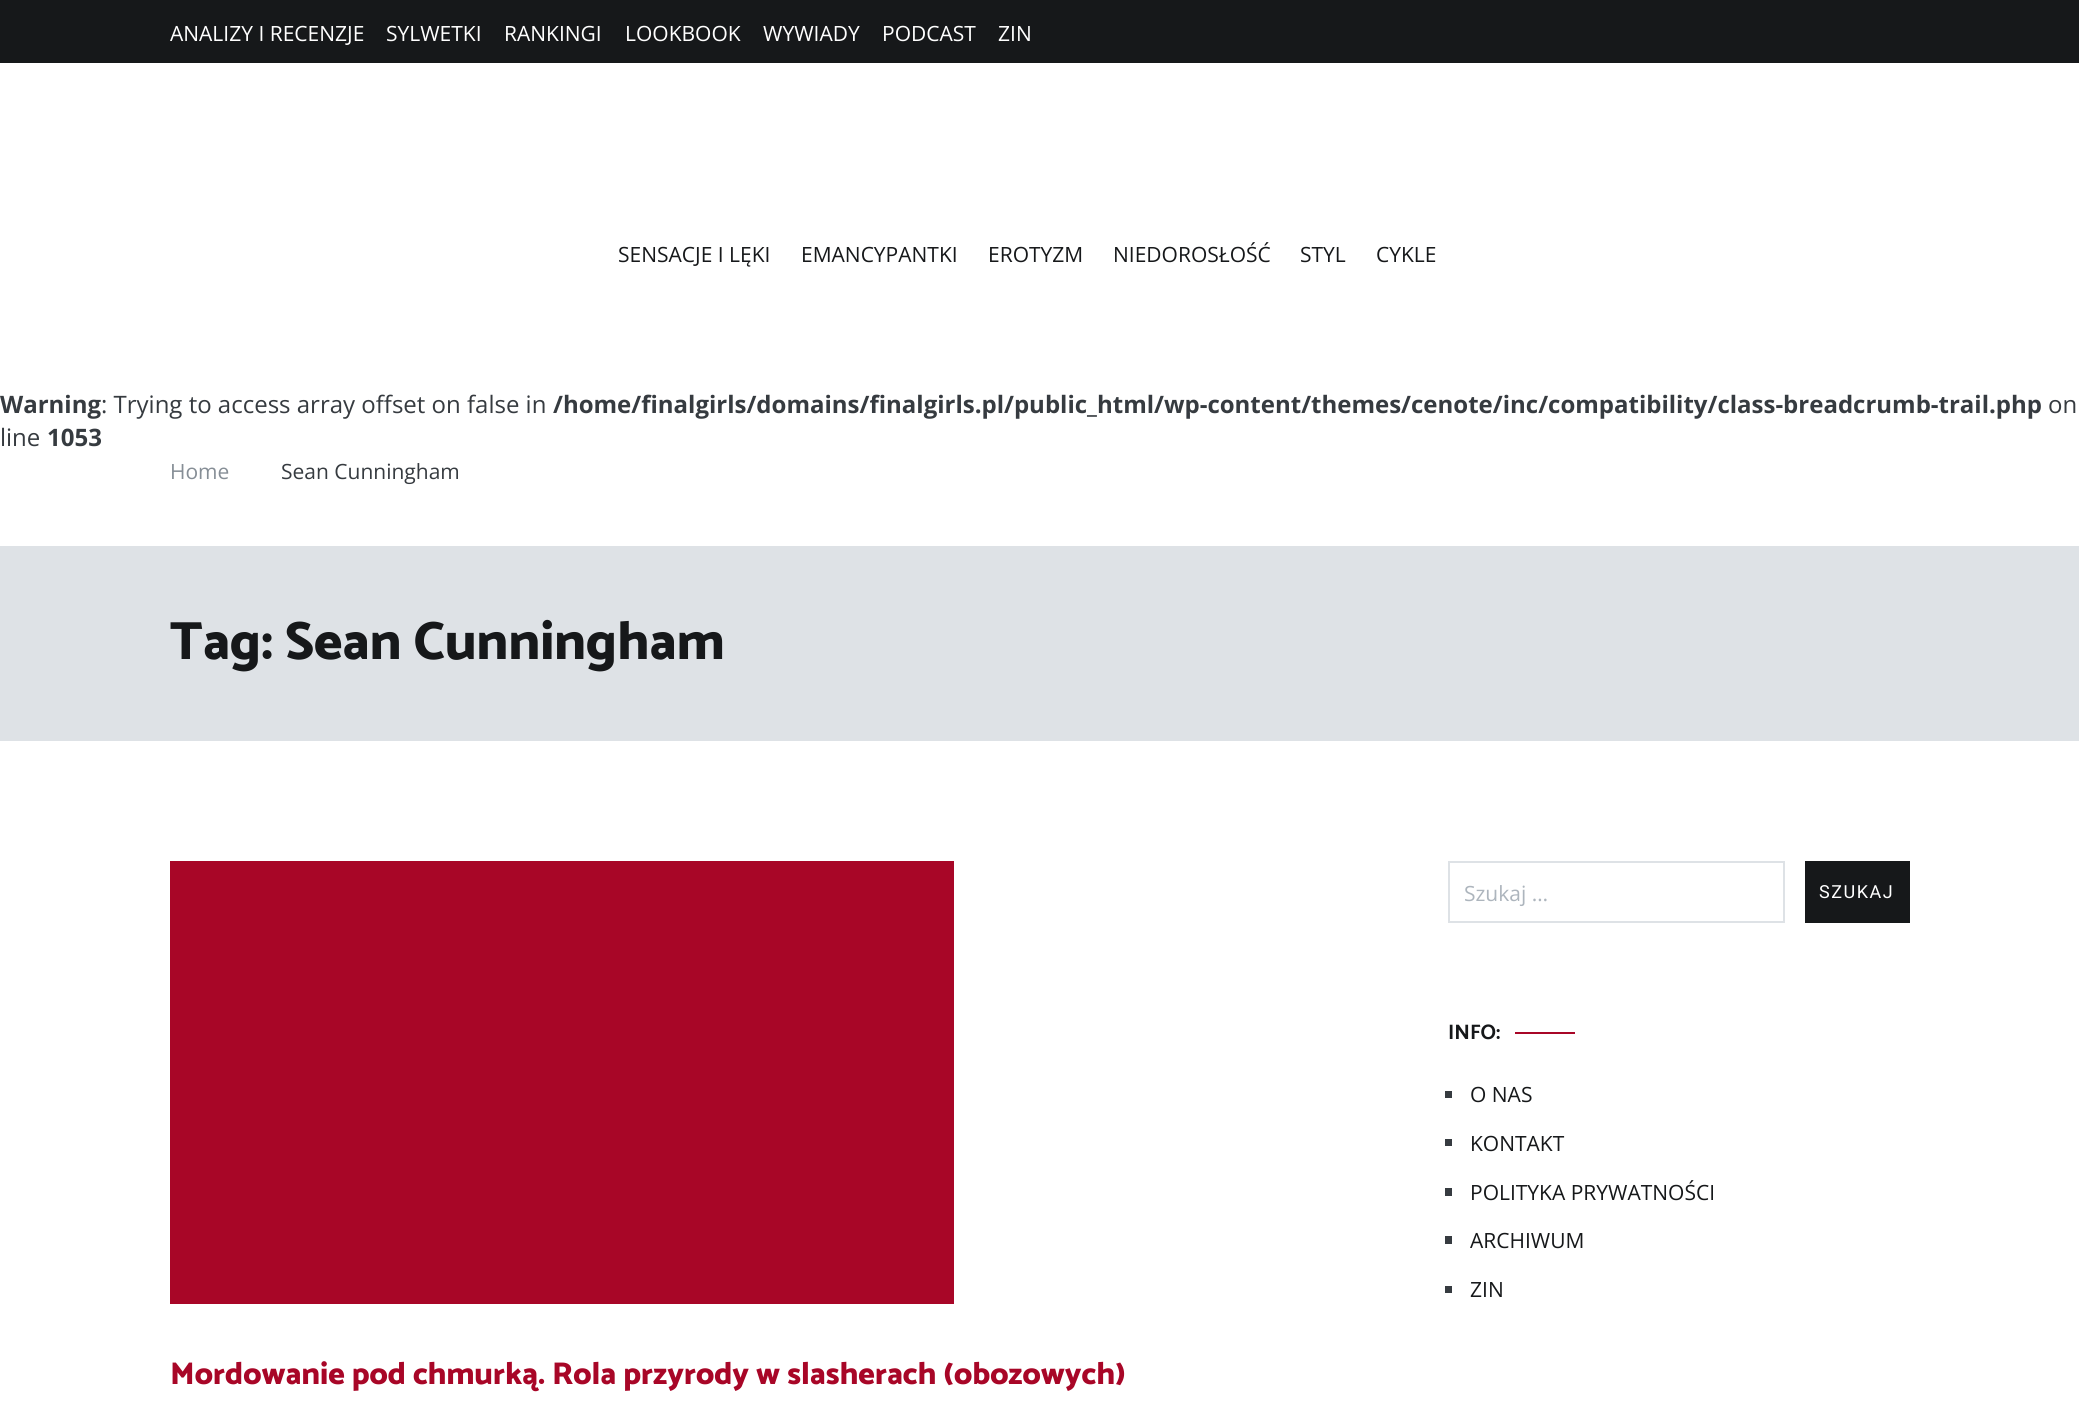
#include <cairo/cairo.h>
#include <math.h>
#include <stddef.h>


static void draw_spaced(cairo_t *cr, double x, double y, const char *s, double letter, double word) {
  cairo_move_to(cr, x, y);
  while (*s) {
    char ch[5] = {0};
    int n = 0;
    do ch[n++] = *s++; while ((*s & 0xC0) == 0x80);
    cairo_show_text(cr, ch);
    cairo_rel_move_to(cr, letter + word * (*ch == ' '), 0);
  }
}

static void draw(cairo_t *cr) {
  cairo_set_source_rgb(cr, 1, 1, 1);
  cairo_paint(cr);
  cairo_set_source_rgb(cr, 22 / 255.0, 24 / 255.0, 26 / 255.0);
  cairo_rectangle(cr, 0, 0, 2079, 63);
  cairo_fill(cr);
  cairo_set_source_rgb(cr, 222 / 255.0, 226 / 255.0, 230 / 255.0);
  cairo_rectangle(cr, 0, 546, 2079, 195);
  cairo_fill(cr);
  cairo_rectangle(cr, 1449, 862, 335, 60);
  cairo_stroke(cr);
  cairo_set_source_rgb(cr, 22 / 255.0, 24 / 255.0, 26 / 255.0);
  cairo_rectangle(cr, 1805, 861, 105, 62);
  cairo_fill(cr);
  cairo_set_source_rgb(cr, 168 / 255.0, 6 / 255.0, 39 / 255.0);
  cairo_rectangle(cr, 1515, 1032, 60, 2);
  cairo_fill(cr);
  cairo_set_source_rgb(cr, 54 / 255.0, 59 / 255.0, 64 / 255.0);
  cairo_rectangle(cr, 1445, 1091, 7, 7);
  cairo_fill(cr);
  cairo_rectangle(cr, 1445, 1139, 7, 7);
  cairo_fill(cr);
  cairo_rectangle(cr, 1445, 1188, 7, 8);
  cairo_fill(cr);
  cairo_rectangle(cr, 1445, 1236, 7, 8);
  cairo_fill(cr);
  cairo_rectangle(cr, 1445, 1286, 7, 7);
  cairo_fill(cr);
  cairo_set_source_rgb(cr, 168 / 255.0, 6 / 255.0, 39 / 255.0);
  cairo_rectangle(cr, 170, 861, 784, 443);
  cairo_fill(cr);
  cairo_select_font_face(cr, "Open Sans", CAIRO_FONT_SLANT_NORMAL, CAIRO_FONT_WEIGHT_NORMAL);
  cairo_set_font_size(cr, 21);
  cairo_set_source_rgb(cr, 1, 1, 1);
  cairo_move_to(cr, 170, 41);
  cairo_show_text(cr, "ANALIZY I RECENZJE");
  cairo_move_to(cr, 386, 41);
  cairo_show_text(cr, "SYLWETKI");
  cairo_move_to(cr, 504, 41);
  cairo_show_text(cr, "RANKINGI");
  cairo_move_to(cr, 625, 41);
  cairo_show_text(cr, "LOOKBOOK");
  cairo_move_to(cr, 763, 41);
  cairo_show_text(cr, "WYWIADY");
  cairo_move_to(cr, 882, 41);
  cairo_show_text(cr, "PODCAST");
  cairo_move_to(cr, 998, 41);
  cairo_show_text(cr, "ZIN");
  cairo_set_source_rgb(cr, 22 / 255.0, 24 / 255.0, 26 / 255.0);
  cairo_move_to(cr, 618, 262);
  cairo_show_text(cr, "SENSACJE I LĘKI");
  cairo_move_to(cr, 801, 262);
  cairo_show_text(cr, "EMANCYPANTKI");
  cairo_move_to(cr, 988, 262);
  cairo_show_text(cr, "EROTYZM");
  cairo_move_to(cr, 1113, 262);
  cairo_show_text(cr, "NIEDOROSŁOŚĆ");
  cairo_move_to(cr, 1300, 262);
  cairo_show_text(cr, "STYL");
  cairo_move_to(cr, 1376, 262);
  cairo_show_text(cr, "CYKLE");
  cairo_select_font_face(cr, "Open Sans", CAIRO_FONT_SLANT_NORMAL, CAIRO_FONT_WEIGHT_BOLD);
  cairo_set_font_size(cr, 24);
  cairo_set_source_rgb(cr, 54 / 255.0, 59 / 255.0, 64 / 255.0);
  cairo_move_to(cr, 0, 413);
  cairo_show_text(cr, "Warning");
  cairo_select_font_face(cr, "Open Sans", CAIRO_FONT_SLANT_NORMAL, CAIRO_FONT_WEIGHT_NORMAL);
  cairo_move_to(cr, 101, 413);
  cairo_show_text(cr, ": Trying to access array offset on false in");
  cairo_select_font_face(cr, "Open Sans", CAIRO_FONT_SLANT_NORMAL, CAIRO_FONT_WEIGHT_BOLD);
  cairo_move_to(cr, 553, 413);
  cairo_show_text(cr, "/home/finalgirls/domains/finalgirls.pl/public_html/wp-content/themes/cenote/inc/compatibility/class-breadcrumb-trail.php");
  cairo_select_font_face(cr, "Open Sans", CAIRO_FONT_SLANT_NORMAL, CAIRO_FONT_WEIGHT_NORMAL);
  cairo_move_to(cr, 2048, 413);
  cairo_show_text(cr, "on");
  cairo_move_to(cr, 0, 446);
  cairo_show_text(cr, "line");
  cairo_select_font_face(cr, "Open Sans", CAIRO_FONT_SLANT_NORMAL, CAIRO_FONT_WEIGHT_BOLD);
  cairo_move_to(cr, 47, 446);
  cairo_show_text(cr, "1053");
  cairo_select_font_face(cr, "Open Sans", CAIRO_FONT_SLANT_NORMAL, CAIRO_FONT_WEIGHT_NORMAL);
  cairo_set_font_size(cr, 21);
  cairo_set_source_rgb(cr, 134 / 255.0, 142 / 255.0, 150 / 255.0);
  cairo_move_to(cr, 170, 479);
  cairo_show_text(cr, "Home");
  cairo_set_source_rgb(cr, 54 / 255.0, 59 / 255.0, 64 / 255.0);
  cairo_move_to(cr, 281, 479);
  cairo_show_text(cr, "Sean Cunningham");
  cairo_select_font_face(cr, "Catamaran ExtraBold", CAIRO_FONT_SLANT_NORMAL, CAIRO_FONT_WEIGHT_NORMAL);
  cairo_set_font_size(cr, 54);
  cairo_set_source_rgb(cr, 22 / 255.0, 24 / 255.0, 26 / 255.0);
  cairo_move_to(cr, 170, 659);
  cairo_show_text(cr, "Tag: Sean Cunningham");
  cairo_select_font_face(cr, "Open Sans", CAIRO_FONT_SLANT_NORMAL, CAIRO_FONT_WEIGHT_NORMAL);
  cairo_set_font_size(cr, 21);
  cairo_set_source_rgb(cr, 173 / 255.0, 181 / 255.0, 189 / 255.0);
  cairo_move_to(cr, 1464, 901);
  cairo_show_text(cr, "Szukaj …");
  cairo_select_font_face(cr, "Roboto", CAIRO_FONT_SLANT_NORMAL, CAIRO_FONT_WEIGHT_NORMAL);
  cairo_set_font_size(cr, 18);
  cairo_set_source_rgb(cr, 1, 1, 1);
  draw_spaced(cr, 1819, 898, "SZUKAJ", 1.5, 0);
  cairo_select_font_face(cr, "Catamaran", CAIRO_FONT_SLANT_NORMAL, CAIRO_FONT_WEIGHT_BOLD);
  cairo_set_font_size(cr, 21);
  cairo_set_source_rgb(cr, 22 / 255.0, 24 / 255.0, 26 / 255.0);
  cairo_move_to(cr, 1448, 1039);
  cairo_show_text(cr, "INFO:");
  cairo_select_font_face(cr, "Open Sans", CAIRO_FONT_SLANT_NORMAL, CAIRO_FONT_WEIGHT_NORMAL);
  cairo_move_to(cr, 1470, 1102);
  cairo_show_text(cr, "O NAS");
  cairo_move_to(cr, 1470, 1151);
  cairo_show_text(cr, "KONTAKT");
  cairo_move_to(cr, 1470, 1200);
  cairo_show_text(cr, "POLITYKA PRYWATNOŚCI");
  cairo_move_to(cr, 1470, 1248);
  cairo_show_text(cr, "ARCHIWUM");
  cairo_move_to(cr, 1470, 1297);
  cairo_show_text(cr, "ZIN");
  cairo_select_font_face(cr, "Catamaran ExtraBold", CAIRO_FONT_SLANT_NORMAL, CAIRO_FONT_WEIGHT_NORMAL);
  cairo_set_font_size(cr, 31.5);
  cairo_set_source_rgb(cr, 168 / 255.0, 6 / 255.0, 39 / 255.0);
  cairo_move_to(cr, 170, 1384);
  cairo_show_text(cr, "Mordowanie pod chmurką. Rola przyrody w slasherach (obozowych)");
}

int main(void) {
  cairo_surface_t *surface = cairo_image_surface_create(CAIRO_FORMAT_RGB24, 2079, 1407);
  cairo_t *cr = cairo_create(surface);
  cairo_font_options_t *options = cairo_font_options_create();
  cairo_font_options_set_hint_metrics(options, CAIRO_HINT_METRICS_OFF);
  cairo_font_options_set_hint_style(options, CAIRO_HINT_STYLE_NONE);
  cairo_set_font_options(cr, options);
  cairo_set_miter_limit(cr, 4);
  draw(cr);
  cairo_surface_write_to_png(surface, "out.png");
  cairo_font_options_destroy(options);
  cairo_destroy(cr);
  cairo_surface_destroy(surface);
  return 0;
}
